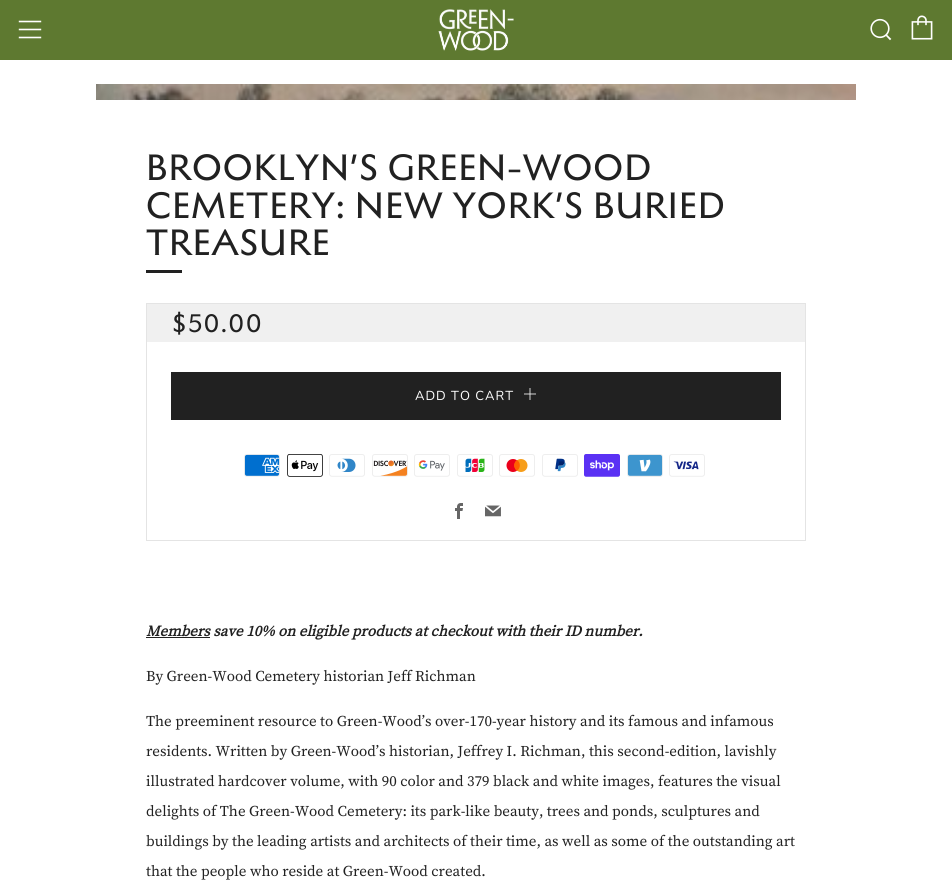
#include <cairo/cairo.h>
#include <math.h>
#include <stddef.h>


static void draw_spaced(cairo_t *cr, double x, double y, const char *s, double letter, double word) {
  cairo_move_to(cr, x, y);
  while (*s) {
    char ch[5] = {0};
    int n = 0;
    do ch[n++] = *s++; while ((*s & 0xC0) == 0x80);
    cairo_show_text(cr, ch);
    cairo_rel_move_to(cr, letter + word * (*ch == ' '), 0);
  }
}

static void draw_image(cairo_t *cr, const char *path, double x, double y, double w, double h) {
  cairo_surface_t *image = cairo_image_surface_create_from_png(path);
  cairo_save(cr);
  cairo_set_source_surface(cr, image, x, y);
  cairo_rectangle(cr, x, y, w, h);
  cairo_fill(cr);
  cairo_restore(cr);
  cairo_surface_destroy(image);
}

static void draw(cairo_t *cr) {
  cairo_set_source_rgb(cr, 1, 1, 1);
  cairo_paint(cr);
  cairo_set_source_rgb(cr, 94 / 255.0, 121 / 255.0, 48 / 255.0);
  cairo_rectangle(cr, 0, 0, 952, 60);
  cairo_fill(cr);
  draw_image(cr, "images/1.png", 18, 20, 24, 19);
  draw_image(cr, "images/2.png", 438, 9, 76, 42);
  draw_image(cr, "images/3.png", 870, 18, 22, 23);
  draw_image(cr, "images/4.png", 911, 15, 22, 25);
  draw_image(cr, "images/5.png", 96, 84, 760, 16);
  cairo_set_source_rgb(cr, 33 / 255.0, 33 / 255.0, 33 / 255.0);
  cairo_rectangle(cr, 146, 270, 36, 3);
  cairo_fill(cr);
  cairo_rectangle(cr, 146.5, 303.5, 659, 237);
  cairo_set_source_rgb(cr, 228 / 255.0, 228 / 255.0, 228 / 255.0);
  cairo_set_line_width(cr, 1);
  cairo_stroke(cr);
  cairo_set_source_rgb(cr, 240 / 255.0, 240 / 255.0, 240 / 255.0);
  cairo_rectangle(cr, 147, 304, 658, 38);
  cairo_fill(cr);
  cairo_set_source_rgb(cr, 33 / 255.0, 33 / 255.0, 33 / 255.0);
  cairo_rectangle(cr, 171, 372, 610, 48);
  cairo_fill(cr);
  draw_image(cr, "images/6.png", 524, 388, 12, 12);
  draw_image(cr, "images/7.png", 244, 454, 36, 23);
  draw_image(cr, "images/8.png", 287, 454, 36, 23);
  draw_image(cr, "images/9.png", 329, 454, 36, 23);
  draw_image(cr, "images/10.png", 372, 454, 36, 23);
  draw_image(cr, "images/11.png", 414, 454, 36, 23);
  draw_image(cr, "images/12.png", 457, 454, 36, 23);
  draw_image(cr, "images/13.png", 499, 454, 36, 23);
  draw_image(cr, "images/14.png", 542, 454, 36, 23);
  draw_image(cr, "images/15.png", 584, 454, 36, 23);
  draw_image(cr, "images/16.png", 627, 454, 36, 23);
  draw_image(cr, "images/17.png", 669, 454, 36, 23);
  draw_image(cr, "images/18.png", 455, 503, 8, 16);
  draw_image(cr, "images/19.png", 485, 505, 16, 12);
  cairo_rectangle(cr, 146, 637, 64, 1);
  cairo_fill(cr);
  cairo_select_font_face(cr, "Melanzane", CAIRO_FONT_SLANT_NORMAL, CAIRO_FONT_WEIGHT_NORMAL);
  cairo_set_font_size(cr, 37.5);
  draw_spaced(cr, 146, 180, "BROOKLYN’S GREEN-WOOD", 1, 0);
  draw_spaced(cr, 146, 218, "CEMETERY: NEW YORK’S BURIED", 1, 0);
  draw_spaced(cr, 146, 255, "TREASURE", 1, 0);
  cairo_set_font_size(cr, 26);
  draw_spaced(cr, 171, 332, "$50.00", 1, 0);
  cairo_select_font_face(cr, "Nunito", CAIRO_FONT_SLANT_NORMAL, CAIRO_FONT_WEIGHT_NORMAL);
  cairo_set_font_size(cr, 13);
  cairo_set_source_rgb(cr, 1, 1, 1);
  draw_spaced(cr, 415, 400, "ADD TO CART", 1, 0);
  cairo_select_font_face(cr, "Source Serif 4", CAIRO_FONT_SLANT_ITALIC, CAIRO_FONT_WEIGHT_BOLD);
  cairo_set_font_size(cr, 15);
  cairo_set_source_rgb(cr, 33 / 255.0, 33 / 255.0, 33 / 255.0);
  cairo_move_to(cr, 146, 636);
  cairo_show_text(cr, "Members save 10% on eligible products at checkout with their ID number.");
  cairo_select_font_face(cr, "Source Serif 4", CAIRO_FONT_SLANT_NORMAL, CAIRO_FONT_WEIGHT_NORMAL);
  cairo_move_to(cr, 146, 681);
  cairo_show_text(cr, "By Green-Wood Cemetery historian Jeff Richman");
  cairo_move_to(cr, 146, 726);
  cairo_show_text(cr, "The preeminent resource to Green-Wood’s over-170-year history and its famous and infamous");
  cairo_move_to(cr, 146, 756);
  cairo_show_text(cr, "residents. Written by Green-Wood’s historian, Jeffrey I. Richman, this second-edition, lavishly");
  cairo_move_to(cr, 146, 786);
  cairo_show_text(cr, "illustrated hardcover volume, with 90 color and 379 black and white images, features the visual");
  cairo_move_to(cr, 146, 816);
  cairo_show_text(cr, "delights of The Green-Wood Cemetery: its park-like beauty, trees and ponds, sculptures and");
  cairo_move_to(cr, 146, 846);
  cairo_show_text(cr, "buildings by the leading artists and architects of their time, as well as some of the outstanding art");
  cairo_move_to(cr, 146, 876);
  cairo_show_text(cr, "that the people who reside at Green-Wood created.");
}

int main(void) {
  cairo_surface_t *surface = cairo_image_surface_create(CAIRO_FORMAT_RGB24, 952, 890);
  cairo_t *cr = cairo_create(surface);
  cairo_font_options_t *options = cairo_font_options_create();
  cairo_font_options_set_hint_metrics(options, CAIRO_HINT_METRICS_OFF);
  cairo_font_options_set_hint_style(options, CAIRO_HINT_STYLE_NONE);
  cairo_set_font_options(cr, options);
  cairo_set_miter_limit(cr, 4);
  draw(cr);
  cairo_surface_write_to_png(surface, "out.png");
  cairo_font_options_destroy(options);
  cairo_destroy(cr);
  cairo_surface_destroy(surface);
  return 0;
}
